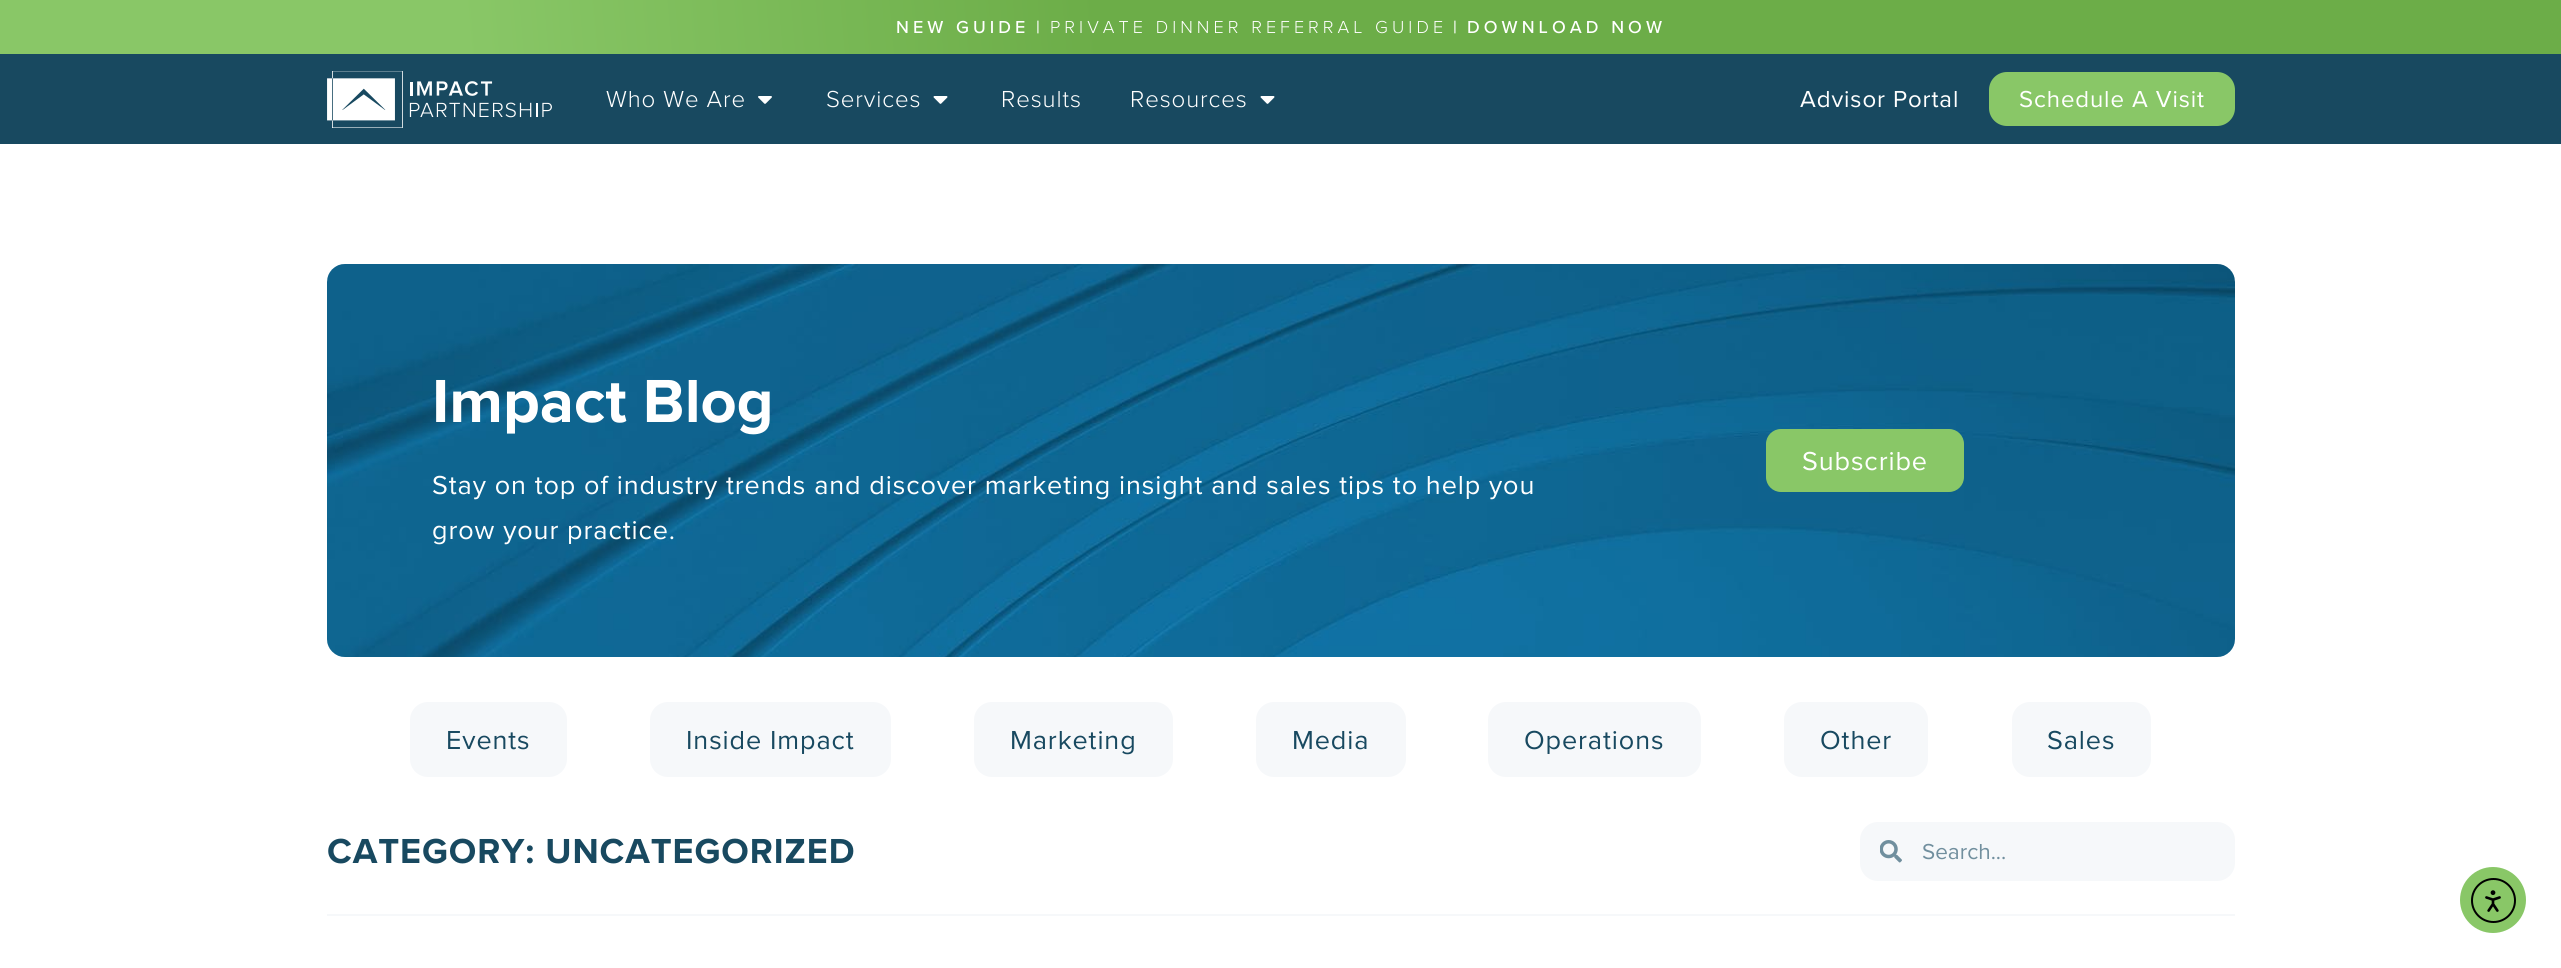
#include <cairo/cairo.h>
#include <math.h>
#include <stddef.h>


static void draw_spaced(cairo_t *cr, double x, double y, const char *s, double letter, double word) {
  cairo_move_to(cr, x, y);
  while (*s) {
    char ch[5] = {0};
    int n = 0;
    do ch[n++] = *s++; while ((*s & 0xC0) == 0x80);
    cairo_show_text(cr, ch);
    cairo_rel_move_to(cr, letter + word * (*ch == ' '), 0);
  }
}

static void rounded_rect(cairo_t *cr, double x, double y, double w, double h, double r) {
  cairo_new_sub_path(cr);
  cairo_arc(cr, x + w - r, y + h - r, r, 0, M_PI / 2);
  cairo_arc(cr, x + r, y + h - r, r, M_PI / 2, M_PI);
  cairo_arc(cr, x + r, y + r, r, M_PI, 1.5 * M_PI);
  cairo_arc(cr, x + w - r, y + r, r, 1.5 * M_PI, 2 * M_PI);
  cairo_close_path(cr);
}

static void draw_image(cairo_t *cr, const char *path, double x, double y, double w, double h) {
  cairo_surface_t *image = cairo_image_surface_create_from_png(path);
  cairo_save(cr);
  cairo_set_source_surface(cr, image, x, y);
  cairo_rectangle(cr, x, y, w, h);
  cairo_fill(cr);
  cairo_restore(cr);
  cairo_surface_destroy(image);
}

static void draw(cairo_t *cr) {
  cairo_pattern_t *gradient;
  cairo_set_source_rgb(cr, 1, 1, 1);
  cairo_paint(cr);
  cairo_set_source_rgb(cr, 24 / 255.0, 73 / 255.0, 96 / 255.0);
  cairo_rectangle(cr, 0, 54, 2561, 90);
  cairo_fill(cr);
  gradient = cairo_pattern_create_linear(7.4, 138, 2555, -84);
  cairo_pattern_add_color_stop_rgba(gradient, 0.18, 137 / 255.0, 199 / 255.0, 103 / 255.0, 1);
  cairo_pattern_add_color_stop_rgba(gradient, 0.43, 108 / 255.0, 173 / 255.0, 72 / 255.0, 1);
  cairo_set_source(cr, gradient);
  cairo_pattern_destroy(gradient);
  cairo_rectangle(cr, 0, 0, 2561, 54);
  cairo_fill(cr);
  draw_image(cr, "images/1.png", 327, 71, 225, 57);
  draw_image(cr, "images/2.png", 758, 96, 14, 8);
  draw_image(cr, "images/3.png", 933, 96, 15, 8);
  draw_image(cr, "images/3.png", 1260, 96, 15, 8);
  cairo_set_source_rgb(cr, 137 / 255.0, 199 / 255.0, 103 / 255.0);
  rounded_rect(cr, 1989, 72, 246, 54, 18);
  cairo_fill(cr);
  draw_image(cr, "images/4.png", 327, 264, 1908, 393);
  rounded_rect(cr, 1766, 429, 198, 63, 15);
  cairo_fill(cr);
  cairo_set_source_rgb(cr, 246 / 255.0, 248 / 255.0, 250 / 255.0);
  rounded_rect(cr, 410, 702, 157, 75, 18);
  cairo_fill(cr);
  rounded_rect(cr, 650, 702, 241, 75, 18);
  cairo_fill(cr);
  rounded_rect(cr, 974, 702, 199, 75, 18);
  cairo_fill(cr);
  rounded_rect(cr, 1256, 702, 150, 75, 18);
  cairo_fill(cr);
  rounded_rect(cr, 1488, 702, 213, 75, 18);
  cairo_fill(cr);
  rounded_rect(cr, 1784, 702, 144, 75, 18);
  cairo_fill(cr);
  rounded_rect(cr, 2012, 702, 139, 75, 18);
  cairo_fill(cr);
  rounded_rect(cr, 1860, 822, 375, 59, 18);
  cairo_fill(cr);
  draw_image(cr, "images/5.png", 1880, 840, 22, 23);
  cairo_rectangle(cr, 327, 914, 1908, 2);
  cairo_fill(cr);
  cairo_set_source_rgb(cr, 137 / 255.0, 199 / 255.0, 103 / 255.0);
  cairo_arc(cr, 2493, 900, 33, 0, 2 * M_PI);
  cairo_fill(cr);
  cairo_arc(cr, 2493.5, 900.5, 21.5, 0, 2 * M_PI);
  cairo_set_source_rgb(cr, 0, 0, 0);
  cairo_stroke(cr);
  draw_image(cr, "images/6.png", 2485, 890, 16, 22);
  cairo_select_font_face(cr, "Proxima Nova Medium", CAIRO_FONT_SLANT_NORMAL, CAIRO_FONT_WEIGHT_NORMAL);
  cairo_set_font_size(cr, 18);
  cairo_set_source_rgb(cr, 1, 1, 1);
  draw_spaced(cr, 896, 33, "NEW GUIDE", 4.05, 0);
  draw_spaced(cr, 1036, 33, "|", 4.05, 0);
  cairo_select_font_face(cr, "Proxima Nova Light", CAIRO_FONT_SLANT_NORMAL, CAIRO_FONT_WEIGHT_NORMAL);
  draw_spaced(cr, 1050, 33, "PRIVATE DINNER REFERRAL GUIDE", 4.05, 0);
  cairo_select_font_face(cr, "Proxima Nova Medium", CAIRO_FONT_SLANT_NORMAL, CAIRO_FONT_WEIGHT_NORMAL);
  draw_spaced(cr, 1453, 33, "|", 4.05, 0);
  draw_spaced(cr, 1467, 33, "DOWNLOAD NOW", 4.05, 0);
  cairo_select_font_face(cr, "Proxima Nova Light", CAIRO_FONT_SLANT_NORMAL, CAIRO_FONT_WEIGHT_NORMAL);
  cairo_set_font_size(cr, 24);
  draw_spaced(cr, 606, 107, "Who We Are", 0.9, 0);
  draw_spaced(cr, 826, 107, "Services", 0.9, 0);
  draw_spaced(cr, 1001, 107, "Results", 0.9, 0);
  draw_spaced(cr, 1130, 107, "Resources", 0.9, 0);
  cairo_select_font_face(cr, "Proxima Nova", CAIRO_FONT_SLANT_NORMAL, CAIRO_FONT_WEIGHT_NORMAL);
  draw_spaced(cr, 1800, 107, "Advisor Portal", 0.9, 0);
  draw_spaced(cr, 2019, 107, "Schedule A Visit", 0.9, 0);
  cairo_select_font_face(cr, "Proxima Nova", CAIRO_FONT_SLANT_NORMAL, CAIRO_FONT_WEIGHT_BOLD);
  cairo_set_font_size(cr, 63);
  cairo_move_to(cr, 432, 422);
  cairo_show_text(cr, "Impact Blog");
  cairo_select_font_face(cr, "Proxima Nova", CAIRO_FONT_SLANT_NORMAL, CAIRO_FONT_WEIGHT_NORMAL);
  cairo_set_font_size(cr, 27);
  draw_spaced(cr, 432, 494, "Stay on top of industry trends and discover marketing insight and sales tips to help you", 0.9, 0);
  draw_spaced(cr, 432, 539, "grow your practice.", 0.9, 0);
  draw_spaced(cr, 1802, 470, "Subscribe", 0.9, 0);
  cairo_set_source_rgb(cr, 24 / 255.0, 73 / 255.0, 96 / 255.0);
  draw_spaced(cr, 446, 749, "Events", 0.9, 0);
  draw_spaced(cr, 686, 749, "Inside Impact", 0.9, 0);
  draw_spaced(cr, 1010, 749, "Marketing", 0.9, 0);
  draw_spaced(cr, 1292, 749, "Media", 0.9, 0);
  draw_spaced(cr, 1524, 749, "Operations", 0.9, 0);
  draw_spaced(cr, 1820, 749, "Other", 0.9, 0);
  draw_spaced(cr, 2047, 749, "Sales", 0.9, 0);
  cairo_select_font_face(cr, "Proxima Nova", CAIRO_FONT_SLANT_NORMAL, CAIRO_FONT_WEIGHT_BOLD);
  cairo_set_font_size(cr, 36);
  draw_spaced(cr, 327, 863, "CATEGORY: UNCATEGORIZED", 0.9, 0);
  cairo_select_font_face(cr, "Proxima Nova", CAIRO_FONT_SLANT_NORMAL, CAIRO_FONT_WEIGHT_NORMAL);
  cairo_set_font_size(cr, 22.5);
  cairo_set_source_rgb(cr, 113 / 255.0, 143 / 255.0, 158 / 255.0);
  cairo_move_to(cr, 1922, 859);
  cairo_show_text(cr, "Search...");
}

int main(void) {
  cairo_surface_t *surface = cairo_image_surface_create(CAIRO_FORMAT_RGB24, 2561, 968);
  cairo_t *cr = cairo_create(surface);
  cairo_font_options_t *options = cairo_font_options_create();
  cairo_font_options_set_hint_metrics(options, CAIRO_HINT_METRICS_OFF);
  cairo_font_options_set_hint_style(options, CAIRO_HINT_STYLE_NONE);
  cairo_set_font_options(cr, options);
  cairo_set_miter_limit(cr, 4);
  draw(cr);
  cairo_surface_write_to_png(surface, "out.png");
  cairo_font_options_destroy(options);
  cairo_destroy(cr);
  cairo_surface_destroy(surface);
  return 0;
}
